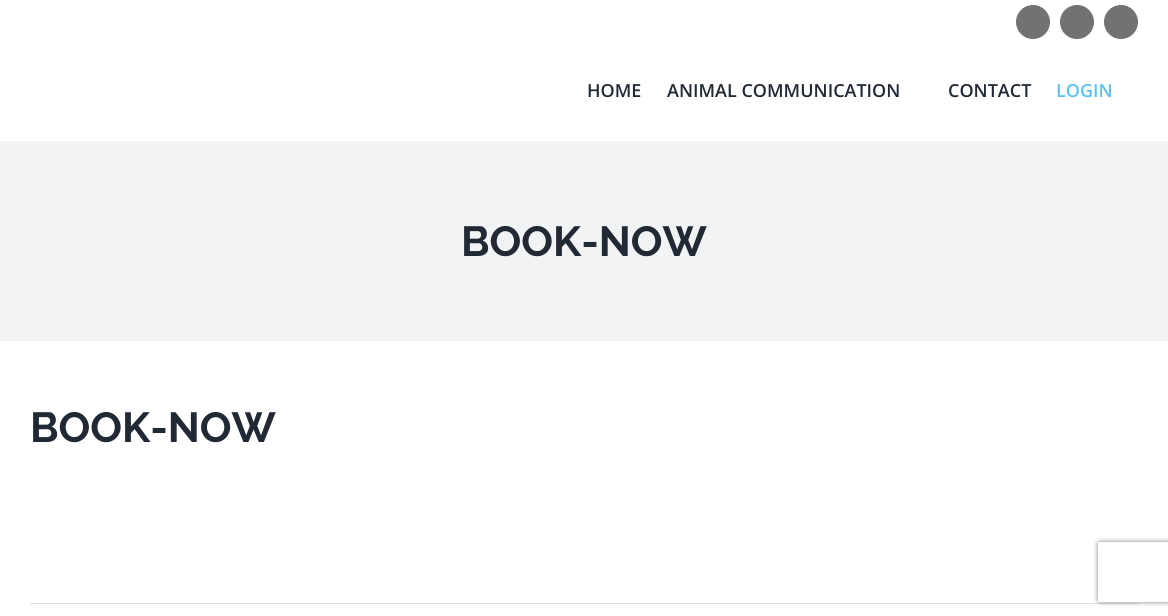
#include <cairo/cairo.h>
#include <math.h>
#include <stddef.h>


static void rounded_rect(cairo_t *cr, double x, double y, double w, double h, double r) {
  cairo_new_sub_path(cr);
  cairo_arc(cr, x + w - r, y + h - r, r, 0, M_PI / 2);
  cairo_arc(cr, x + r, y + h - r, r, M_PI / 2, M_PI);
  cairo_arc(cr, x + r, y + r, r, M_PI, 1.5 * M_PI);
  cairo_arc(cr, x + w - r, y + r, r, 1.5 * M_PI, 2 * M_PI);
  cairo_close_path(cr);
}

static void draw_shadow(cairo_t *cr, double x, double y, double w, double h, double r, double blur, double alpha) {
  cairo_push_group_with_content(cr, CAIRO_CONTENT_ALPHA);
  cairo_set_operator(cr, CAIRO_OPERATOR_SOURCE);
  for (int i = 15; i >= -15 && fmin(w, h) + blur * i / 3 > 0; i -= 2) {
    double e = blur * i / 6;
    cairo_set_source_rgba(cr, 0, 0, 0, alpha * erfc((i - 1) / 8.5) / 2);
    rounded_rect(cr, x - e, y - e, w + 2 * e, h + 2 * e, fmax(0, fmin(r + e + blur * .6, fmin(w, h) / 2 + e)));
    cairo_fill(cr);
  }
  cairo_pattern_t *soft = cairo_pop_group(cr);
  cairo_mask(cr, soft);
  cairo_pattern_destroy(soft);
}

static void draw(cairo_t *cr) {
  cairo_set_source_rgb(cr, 1, 1, 1);
  cairo_paint(cr);
  cairo_set_source_rgb(cr, 114 / 255.0, 114 / 255.0, 114 / 255.0);
  cairo_arc(cr, 1033, 22, 16.5, 0, 2 * M_PI);
  cairo_fill_preserve(cr);
  cairo_set_line_width(cr, 1);
  cairo_stroke(cr);
  cairo_arc(cr, 1077, 22, 16.5, 0, 2 * M_PI);
  cairo_fill_preserve(cr);
  cairo_stroke(cr);
  cairo_arc(cr, 1121, 22, 16.5, 0, 2 * M_PI);
  cairo_fill_preserve(cr);
  cairo_stroke(cr);
  cairo_set_source_rgb(cr, 242 / 255.0, 243 / 255.0, 245 / 255.0);
  cairo_rectangle(cr, 0, 141, 1168, 200);
  cairo_fill(cr);
  cairo_set_source_rgb(cr, 226 / 255.0, 226 / 255.0, 226 / 255.0);
  cairo_rectangle(cr, 30, 603, 1108, 1);
  cairo_fill(cr);
  cairo_save(cr);
  cairo_set_fill_rule(cr, CAIRO_FILL_RULE_EVEN_ODD);
  cairo_new_path(cr);
  cairo_move_to(cr, 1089, 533);
  cairo_line_to(cr, 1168, 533);
  cairo_line_to(cr, 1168, 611);
  cairo_line_to(cr, 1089, 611);
  cairo_close_path(cr);
  cairo_move_to(cr, 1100, 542);
  cairo_line_to(cr, 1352, 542);
  cairo_curve_to(cr, 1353, 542, 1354, 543, 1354, 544);
  cairo_line_to(cr, 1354, 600);
  cairo_curve_to(cr, 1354, 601, 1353, 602, 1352, 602);
  cairo_line_to(cr, 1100, 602);
  cairo_curve_to(cr, 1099, 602, 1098, 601, 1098, 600);
  cairo_line_to(cr, 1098, 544);
  cairo_curve_to(cr, 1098, 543, 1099, 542, 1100, 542);
  cairo_close_path(cr);
  cairo_clip(cr);
  cairo_set_source_rgb(cr, 128 / 255.0, 128 / 255.0, 128 / 255.0);
  draw_shadow(cr, 1098, 542, 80, 60, 2, 2.5, 1);
  cairo_restore(cr);
  cairo_select_font_face(cr, "Open Sans SemiBold", CAIRO_FONT_SLANT_NORMAL, CAIRO_FONT_WEIGHT_NORMAL);
  cairo_set_font_size(cr, 18);
  cairo_set_source_rgb(cr, 33 / 255.0, 41 / 255.0, 52 / 255.0);
  cairo_move_to(cr, 587, 97);
  cairo_show_text(cr, "HOME");
  cairo_move_to(cr, 667, 97);
  cairo_show_text(cr, "ANIMAL COMMUNICATION");
  cairo_move_to(cr, 948, 97);
  cairo_show_text(cr, "CONTACT");
  cairo_set_source_rgb(cr, 91 / 255.0, 193 / 255.0, 241 / 255.0);
  cairo_move_to(cr, 1056, 97);
  cairo_show_text(cr, "LOGIN");
  cairo_select_font_face(cr, "Raleway", CAIRO_FONT_SLANT_NORMAL, CAIRO_FONT_WEIGHT_BOLD);
  cairo_set_font_size(cr, 42);
  cairo_set_source_rgb(cr, 33 / 255.0, 41 / 255.0, 52 / 255.0);
  cairo_move_to(cr, 461, 256);
  cairo_show_text(cr, "BOOK-NOW");
  cairo_move_to(cr, 30, 442);
  cairo_show_text(cr, "BOOK-NOW");
}

int main(void) {
  cairo_surface_t *surface = cairo_image_surface_create(CAIRO_FORMAT_RGB24, 1168, 616);
  cairo_t *cr = cairo_create(surface);
  cairo_font_options_t *options = cairo_font_options_create();
  cairo_font_options_set_hint_metrics(options, CAIRO_HINT_METRICS_OFF);
  cairo_font_options_set_hint_style(options, CAIRO_HINT_STYLE_NONE);
  cairo_set_font_options(cr, options);
  cairo_set_miter_limit(cr, 4);
  draw(cr);
  cairo_surface_write_to_png(surface, "out.png");
  cairo_font_options_destroy(options);
  cairo_destroy(cr);
  cairo_surface_destroy(surface);
  return 0;
}
